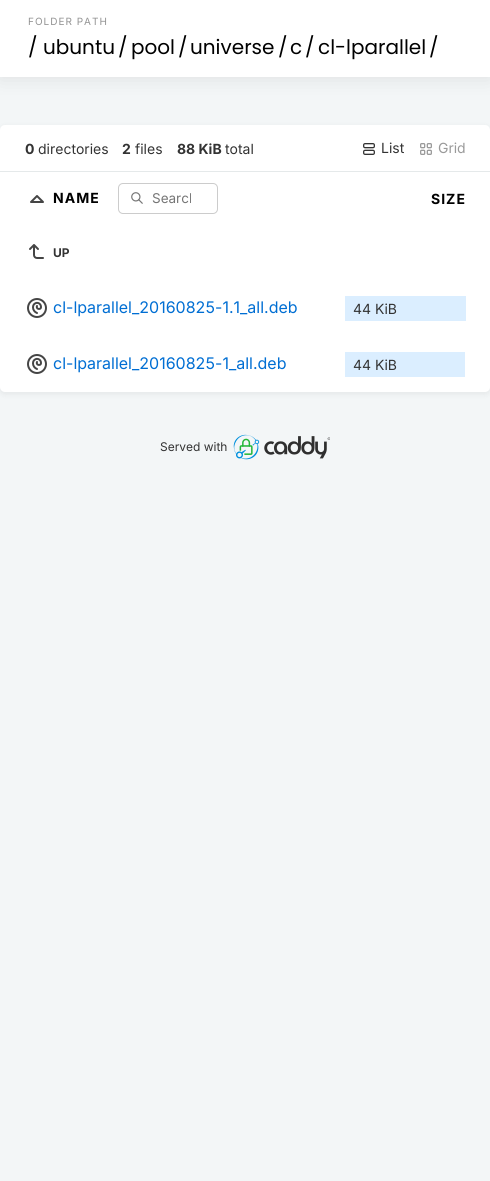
#include <cairo/cairo.h>
#include <math.h>
#include <stddef.h>


static void draw_spaced(cairo_t *cr, double x, double y, const char *s, double letter, double word) {
  cairo_move_to(cr, x, y);
  while (*s) {
    char ch[5] = {0};
    int n = 0;
    do ch[n++] = *s++; while ((*s & 0xC0) == 0x80);
    cairo_show_text(cr, ch);
    cairo_rel_move_to(cr, letter + word * (*ch == ' '), 0);
  }
}

static void rounded_rect(cairo_t *cr, double x, double y, double w, double h, double r) {
  cairo_new_sub_path(cr);
  cairo_arc(cr, x + w - r, y + h - r, r, 0, M_PI / 2);
  cairo_arc(cr, x + r, y + h - r, r, M_PI / 2, M_PI);
  cairo_arc(cr, x + r, y + r, r, M_PI, 1.5 * M_PI);
  cairo_arc(cr, x + w - r, y + r, r, 1.5 * M_PI, 2 * M_PI);
  cairo_close_path(cr);
}

static void draw_shadow(cairo_t *cr, double x, double y, double w, double h, double r, double blur, double alpha) {
  cairo_push_group_with_content(cr, CAIRO_CONTENT_ALPHA);
  cairo_set_operator(cr, CAIRO_OPERATOR_SOURCE);
  for (int i = 15; i >= -15 && fmin(w, h) + blur * i / 3 > 0; i -= 2) {
    double e = blur * i / 6;
    cairo_set_source_rgba(cr, 0, 0, 0, alpha * erfc((i - 1) / 8.5) / 2);
    rounded_rect(cr, x - e, y - e, w + 2 * e, h + 2 * e, fmax(0, fmin(r + e + blur * .6, fmin(w, h) / 2 + e)));
    cairo_fill(cr);
  }
  cairo_pattern_t *soft = cairo_pop_group(cr);
  cairo_mask(cr, soft);
  cairo_pattern_destroy(soft);
}

static void draw_image(cairo_t *cr, const char *path, double x, double y, double w, double h) {
  cairo_surface_t *image = cairo_image_surface_create_from_png(path);
  cairo_save(cr);
  cairo_set_source_surface(cr, image, x, y);
  cairo_rectangle(cr, x, y, w, h);
  cairo_fill(cr);
  cairo_restore(cr);
  cairo_surface_destroy(image);
}

static void draw(cairo_t *cr) {
  cairo_set_source_rgb(cr, 243 / 255.0, 246 / 255.0, 247 / 255.0);
  cairo_paint(cr);
  cairo_set_source_rgb(cr, 0, 0, 0);
  draw_shadow(cr, 0, 0, 490, 77, 0, 10, 0.1);
  cairo_set_source_rgb(cr, 1, 1, 1);
  cairo_rectangle(cr, 0, 0, 490, 77);
  cairo_fill(cr);
  cairo_set_source_rgb(cr, 0, 0, 0);
  draw_shadow(cr, -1, 126, 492, 269, 6, 2.5, 0.05);
  cairo_set_source_rgb(cr, 1, 1, 1);
  rounded_rect(cr, 0, 125, 490, 267, 5);
  cairo_fill(cr);
  cairo_set_source_rgb(cr, 229 / 255.0, 233 / 255.0, 234 / 255.0);
  cairo_rectangle(cr, 0, 171, 490, 1);
  cairo_fill(cr);
  draw_image(cr, "images/1.png", 363, 143, 12, 12);
  draw_image(cr, "images/2.png", 420, 143, 12, 12);
  cairo_new_path(cr);
  cairo_move_to(cr, 43, 202);
  cairo_line_to(cr, 37, 196);
  cairo_line_to(cr, 31, 202);
  cairo_line_to(cr, 43, 202);
  cairo_set_source_rgb(cr, 69 / 255.0, 69 / 255.0, 69 / 255.0);
  cairo_set_line_cap(cr, CAIRO_LINE_CAP_ROUND);
  cairo_set_line_join(cr, CAIRO_LINE_JOIN_ROUND);
  cairo_stroke(cr);
  draw_image(cr, "images/3.png", 131, 192, 12, 12);
  rounded_rect(cr, 118.5, 183.5, 99, 30, 4.5);
  cairo_set_source_rgb(cr, 204 / 255.0, 204 / 255.0, 204 / 255.0);
  cairo_set_line_width(cr, 1);
  cairo_set_line_cap(cr, CAIRO_LINE_CAP_BUTT);
  cairo_set_line_join(cr, CAIRO_LINE_JOIN_MITER);
  cairo_stroke(cr);
  draw_image(cr, "images/4.png", 29, 244, 15, 15);
  draw_image(cr, "images/5.png", 27, 298, 20, 20);
  cairo_set_source_rgb(cr, 219 / 255.0, 238 / 255.0, 1);
  cairo_rectangle(cr, 345, 296, 121, 25);
  cairo_fill(cr);
  draw_image(cr, "images/5.png", 27, 354, 20, 20);
  cairo_rectangle(cr, 345, 352, 120, 25);
  cairo_fill(cr);
  draw_image(cr, "images/6.png", 233, 434, 97, 26);
  cairo_select_font_face(cr, "Inter", CAIRO_FONT_SLANT_NORMAL, CAIRO_FONT_WEIGHT_NORMAL);
  cairo_set_font_size(cr, 10);
  cairo_set_source_rgb(cr, 147 / 255.0, 147 / 255.0, 147 / 255.0);
  draw_spaced(cr, 28, 25, "FOLDER PATH", 1, 0);
  cairo_select_font_face(cr, "Poppins", CAIRO_FONT_SLANT_NORMAL, CAIRO_FONT_WEIGHT_NORMAL);
  cairo_set_font_size(cr, 20);
  cairo_set_source_rgb(cr, 0, 0, 0);
  cairo_move_to(cr, 28, 54);
  cairo_show_text(cr, "/");
  cairo_move_to(cr, 43, 54);
  cairo_show_text(cr, "ubuntu");
  cairo_move_to(cr, 118, 54);
  cairo_show_text(cr, "/");
  cairo_move_to(cr, 131, 54);
  cairo_show_text(cr, "pool");
  cairo_move_to(cr, 178, 54);
  cairo_show_text(cr, "/");
  cairo_move_to(cr, 190, 54);
  cairo_show_text(cr, "universe");
  cairo_move_to(cr, 278, 54);
  cairo_show_text(cr, "/");
  cairo_move_to(cr, 290, 54);
  cairo_show_text(cr, "c");
  cairo_move_to(cr, 305, 54);
  cairo_show_text(cr, "/");
  cairo_move_to(cr, 318, 54);
  cairo_show_text(cr, "cl-lparallel");
  cairo_move_to(cr, 429, 54);
  cairo_show_text(cr, "/");
  cairo_select_font_face(cr, "Inter", CAIRO_FONT_SLANT_NORMAL, CAIRO_FONT_WEIGHT_BOLD);
  cairo_set_font_size(cr, 14);
  cairo_set_source_rgb(cr, 51 / 255.0, 51 / 255.0, 51 / 255.0);
  cairo_move_to(cr, 25, 154);
  cairo_show_text(cr, "0");
  cairo_select_font_face(cr, "Inter", CAIRO_FONT_SLANT_NORMAL, CAIRO_FONT_WEIGHT_NORMAL);
  cairo_move_to(cr, 38, 154);
  cairo_show_text(cr, "directories");
  cairo_select_font_face(cr, "Inter", CAIRO_FONT_SLANT_NORMAL, CAIRO_FONT_WEIGHT_BOLD);
  cairo_move_to(cr, 122, 154);
  cairo_show_text(cr, "2");
  cairo_select_font_face(cr, "Inter", CAIRO_FONT_SLANT_NORMAL, CAIRO_FONT_WEIGHT_NORMAL);
  cairo_move_to(cr, 135, 154);
  cairo_show_text(cr, "files");
  cairo_select_font_face(cr, "Inter", CAIRO_FONT_SLANT_NORMAL, CAIRO_FONT_WEIGHT_BOLD);
  cairo_move_to(cr, 177, 154);
  cairo_show_text(cr, "88 KiB");
  cairo_select_font_face(cr, "Inter", CAIRO_FONT_SLANT_NORMAL, CAIRO_FONT_WEIGHT_NORMAL);
  cairo_move_to(cr, 225, 154);
  cairo_show_text(cr, "total");
  cairo_move_to(cr, 381, 153);
  cairo_show_text(cr, "List");
  cairo_set_source_rgb(cr, 154 / 255.0, 154 / 255.0, 154 / 255.0);
  cairo_move_to(cr, 438, 153);
  cairo_show_text(cr, "Grid");
  cairo_select_font_face(cr, "Inter", CAIRO_FONT_SLANT_NORMAL, CAIRO_FONT_WEIGHT_BOLD);
  cairo_set_source_rgb(cr, 0, 0, 0);
  draw_spaced(cr, 53, 203, "NAME", 1, 0);
  cairo_save(cr);
  cairo_rectangle(cr, 152, 190, 39, 16);
  cairo_clip(cr);
  cairo_select_font_face(cr, "Inter", CAIRO_FONT_SLANT_NORMAL, CAIRO_FONT_WEIGHT_NORMAL);
  cairo_set_font_size(cr, 13.5);
  cairo_set_source_rgb(cr, 117 / 255.0, 117 / 255.0, 117 / 255.0);
  cairo_move_to(cr, 152, 203);
  cairo_show_text(cr, "Search");
  cairo_restore(cr);
  draw_spaced(cr, 431, 204, "SIZE", 1, 0);
  cairo_set_font_size(cr, 12);
  cairo_set_source_rgb(cr, 51 / 255.0, 51 / 255.0, 51 / 255.0);
  cairo_move_to(cr, 53, 257);
  cairo_show_text(cr, "UP");
  cairo_select_font_face(cr, "Inter", CAIRO_FONT_SLANT_NORMAL, CAIRO_FONT_WEIGHT_NORMAL);
  cairo_set_font_size(cr, 16);
  cairo_set_source_rgb(cr, 0, 110 / 255.0, 211 / 255.0);
  cairo_move_to(cr, 53, 313);
  cairo_show_text(cr, "cl-lparallel_20160825-1.1_all.deb");
  cairo_set_font_size(cr, 14);
  cairo_set_source_rgb(cr, 51 / 255.0, 51 / 255.0, 51 / 255.0);
  cairo_move_to(cr, 353, 314);
  cairo_show_text(cr, "44 KiB");
  cairo_set_font_size(cr, 16);
  cairo_set_source_rgb(cr, 0, 110 / 255.0, 211 / 255.0);
  cairo_move_to(cr, 53, 369);
  cairo_show_text(cr, "cl-lparallel_20160825-1_all.deb");
  cairo_set_font_size(cr, 14);
  cairo_set_source_rgb(cr, 51 / 255.0, 51 / 255.0, 51 / 255.0);
  cairo_move_to(cr, 353, 370);
  cairo_show_text(cr, "44 KiB");
  cairo_set_font_size(cr, 12);
  cairo_move_to(cr, 160, 451);
  cairo_show_text(cr, "Served with");
}

int main(void) {
  cairo_surface_t *surface = cairo_image_surface_create(CAIRO_FORMAT_RGB24, 490, 1181);
  cairo_t *cr = cairo_create(surface);
  cairo_font_options_t *options = cairo_font_options_create();
  cairo_font_options_set_hint_metrics(options, CAIRO_HINT_METRICS_OFF);
  cairo_font_options_set_hint_style(options, CAIRO_HINT_STYLE_NONE);
  cairo_set_font_options(cr, options);
  cairo_set_miter_limit(cr, 4);
  draw(cr);
  cairo_surface_write_to_png(surface, "out.png");
  cairo_font_options_destroy(options);
  cairo_destroy(cr);
  cairo_surface_destroy(surface);
  return 0;
}
